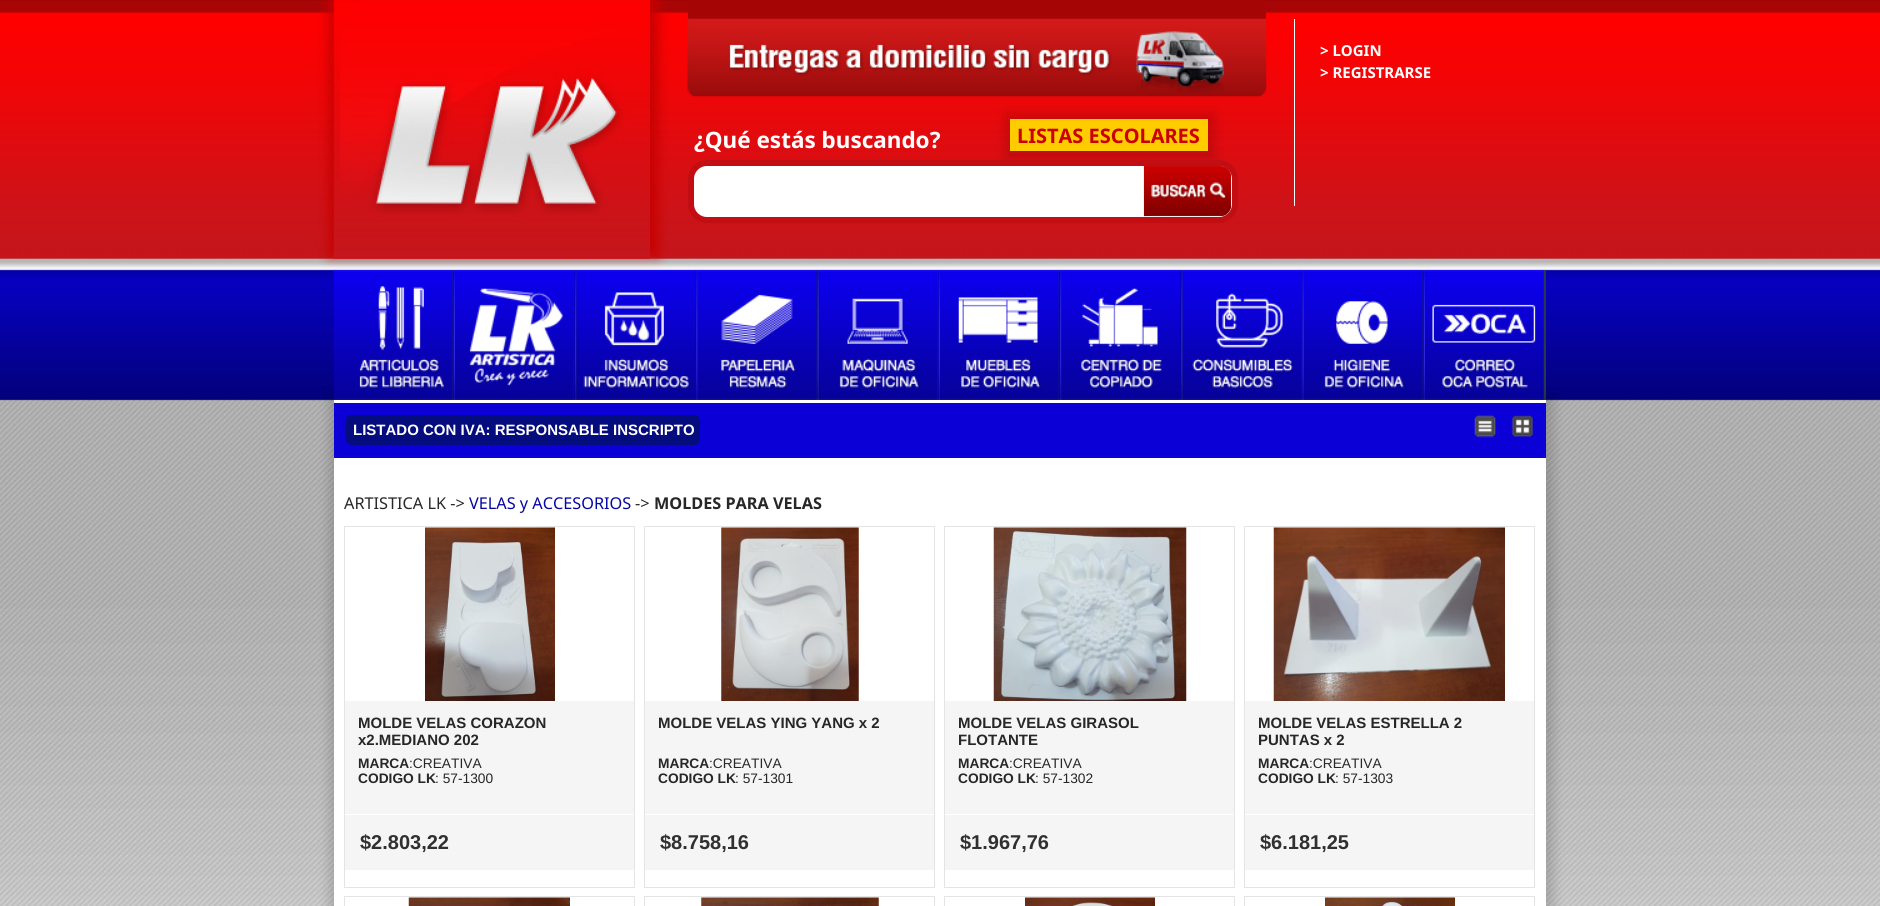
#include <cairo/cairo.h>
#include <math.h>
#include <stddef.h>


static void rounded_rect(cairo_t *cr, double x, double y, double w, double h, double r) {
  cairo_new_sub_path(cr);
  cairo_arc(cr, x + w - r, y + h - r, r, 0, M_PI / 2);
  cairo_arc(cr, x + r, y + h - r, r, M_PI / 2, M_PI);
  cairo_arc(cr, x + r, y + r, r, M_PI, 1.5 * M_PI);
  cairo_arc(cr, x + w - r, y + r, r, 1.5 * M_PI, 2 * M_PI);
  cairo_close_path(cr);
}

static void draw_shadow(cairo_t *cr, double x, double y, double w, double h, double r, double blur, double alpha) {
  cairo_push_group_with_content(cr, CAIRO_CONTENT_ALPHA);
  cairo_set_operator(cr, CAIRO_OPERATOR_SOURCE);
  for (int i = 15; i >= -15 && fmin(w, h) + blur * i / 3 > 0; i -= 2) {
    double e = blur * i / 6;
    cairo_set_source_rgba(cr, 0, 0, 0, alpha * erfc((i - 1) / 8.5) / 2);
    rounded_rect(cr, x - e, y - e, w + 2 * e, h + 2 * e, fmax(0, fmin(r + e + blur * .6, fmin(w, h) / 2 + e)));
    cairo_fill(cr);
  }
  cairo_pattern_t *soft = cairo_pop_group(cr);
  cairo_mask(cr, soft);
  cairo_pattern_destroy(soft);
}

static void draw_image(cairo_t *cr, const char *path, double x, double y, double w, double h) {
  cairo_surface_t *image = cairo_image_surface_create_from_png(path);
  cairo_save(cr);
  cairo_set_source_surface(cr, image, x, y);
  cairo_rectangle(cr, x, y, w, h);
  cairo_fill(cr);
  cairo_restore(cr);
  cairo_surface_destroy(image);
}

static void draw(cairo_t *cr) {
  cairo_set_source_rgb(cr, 1, 1, 1);
  cairo_paint(cr);
  draw_image(cr, "images/1.png", 0, 0, 1880, 906);
  cairo_set_source_rgb(cr, 199 / 255.0, 0, 0);
  draw_shadow(cr, 329, -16, 329, 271, 0, 6, 1);
  draw_image(cr, "images/2.png", 333, 0, 317, 259);
  cairo_set_source_rgb(cr, 1, 1, 1);
  cairo_rectangle(cr, 1294, 19, 1, 187);
  cairo_fill(cr);
  cairo_set_source_rgb(cr, 166 / 255.0, 5 / 255.0, 6 / 255.0);
  cairo_new_path(cr);
  cairo_move_to(cr, 688, 0);
  cairo_line_to(cr, 1266, 0);
  cairo_line_to(cr, 1266, 77);
  cairo_curve_to(cr, 1266, 87.5, 1257.5, 96, 1247, 96);
  cairo_line_to(cr, 707, 96);
  cairo_curve_to(cr, 696.5, 96, 688, 87.5, 688, 77);
  cairo_close_path(cr);
  cairo_fill(cr);
  draw_image(cr, "images/3.png", 687, 18, 580, 79);
  cairo_set_source_rgb(cr, 20 / 255.0, 0, 0);
  draw_shadow(cr, 1005, 114, 210, 45, 0, 6, 0.16);
  cairo_set_source_rgb(cr, 1, 204 / 255.0, 0);
  cairo_rectangle(cr, 1010, 119, 198, 32);
  cairo_fill(cr);
  cairo_set_source_rgb(cr, 1, 1, 1);
  rounded_rect(cr, 691, 163, 544, 57, 16);
  cairo_fill_preserve(cr);
  cairo_set_source_rgb(cr, 194 / 255.0, 14 / 255.0, 18 / 255.0);
  cairo_set_line_width(cr, 6);
  cairo_stroke(cr);
  cairo_new_path(cr);
  cairo_move_to(cr, 1144, 166);
  cairo_line_to(cr, 1220, 166);
  cairo_curve_to(cr, 1226, 166, 1231, 171, 1231, 177);
  cairo_line_to(cr, 1231, 205);
  cairo_curve_to(cr, 1231, 211, 1226, 216, 1220, 216);
  cairo_line_to(cr, 1144, 216);
  cairo_close_path(cr);
  cairo_fill(cr);
  draw_image(cr, "images/4.png", 1143, 166, 89, 51);
  cairo_set_source_rgb(cr, 40 / 255.0, 55 / 255.0, 73 / 255.0);
  cairo_rectangle(cr, 452, 270, 1094, 130);
  cairo_fill(cr);
  cairo_set_source_rgb(cr, 0, 0, 0);
  draw_shadow(cr, 329, 395, 1225, 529, 0, 6, 0.16);
  draw_image(cr, "images/5.png", 333, 270, 120, 130);
  draw_image(cr, "images/6.png", 359, 286, 87, 104);
  draw_image(cr, "images/7.png", 452, 270, 3, 130);
  draw_image(cr, "images/8.png", 455, 270, 119, 130);
  draw_image(cr, "images/9.png", 469, 288, 94, 98);
  draw_image(cr, "images/10.png", 573, 270, 4, 130);
  draw_image(cr, "images/11.png", 576, 270, 119, 130);
  draw_image(cr, "images/12.png", 583, 292, 108, 98);
  draw_image(cr, "images/13.png", 695, 270, 3, 130);
  draw_image(cr, "images/14.png", 697, 270, 120, 130);
  draw_image(cr, "images/15.png", 720, 294, 77, 96);
  draw_image(cr, "images/16.png", 816, 270, 3, 130);
  draw_image(cr, "images/17.png", 818, 270, 120, 130);
  draw_image(cr, "images/18.png", 839, 298, 82, 92);
  draw_image(cr, "images/7.png", 937, 270, 3, 130);
  draw_image(cr, "images/19.png", 940, 270, 119, 130);
  draw_image(cr, "images/20.png", 958, 297, 84, 93);
  draw_image(cr, "images/10.png", 1058, 270, 4, 130);
  draw_image(cr, "images/11.png", 1061, 270, 119, 130);
  draw_image(cr, "images/21.png", 1080, 288, 84, 102);
  draw_image(cr, "images/13.png", 1180, 270, 3, 130);
  draw_image(cr, "images/14.png", 1182, 270, 120, 130);
  draw_image(cr, "images/22.png", 1192, 293, 103, 97);
  draw_image(cr, "images/16.png", 1301, 270, 3, 130);
  draw_image(cr, "images/23.png", 1303, 270, 120, 130);
  draw_image(cr, "images/24.png", 1324, 301, 82, 89);
  draw_image(cr, "images/7.png", 1422, 270, 3, 130);
  draw_image(cr, "images/25.png", 1425, 270, 119, 130);
  draw_image(cr, "images/26.png", 1432, 304, 104, 86);
  cairo_set_source_rgb(cr, 1, 1, 1);
  cairo_rectangle(cr, 334, 458, 1212, 448);
  cairo_fill(cr);
  cairo_set_source_rgb(cr, 11 / 255.0, 0, 213 / 255.0);
  cairo_rectangle(cr, 334, 403, 1212, 55);
  cairo_fill(cr);
  cairo_set_source_rgb(cr, 1, 1, 1);
  cairo_rectangle(cr, 334, 400, 1212, 3);
  cairo_fill(cr);
  cairo_set_source_rgb(cr, 5 / 255.0, 12 / 255.0, 126 / 255.0);
  rounded_rect(cr, 346, 415, 354, 30, 6);
  cairo_fill(cr);
  draw_image(cr, "images/27.png", 1474, 415, 22, 23);
  draw_image(cr, "images/28.png", 1511, 415, 22, 23);
  cairo_rectangle(cr, 344.5, 526.5, 290, 361);
  cairo_set_source_rgb(cr, 228 / 255.0, 228 / 255.0, 228 / 255.0);
  cairo_set_line_width(cr, 1);
  cairo_stroke(cr);
  draw_image(cr, "images/29.png", 425, 527, 130, 174);
  cairo_set_source_rgb(cr, 245 / 255.0, 245 / 255.0, 245 / 255.0);
  cairo_rectangle(cr, 345, 701, 289, 113);
  cairo_fill(cr);
  cairo_rectangle(cr, 345, 815, 289, 55);
  cairo_fill(cr);
  cairo_rectangle(cr, 644.5, 526.5, 290, 361);
  cairo_set_source_rgb(cr, 228 / 255.0, 228 / 255.0, 228 / 255.0);
  cairo_stroke(cr);
  draw_image(cr, "images/30.png", 721, 527, 138, 174);
  cairo_set_source_rgb(cr, 245 / 255.0, 245 / 255.0, 245 / 255.0);
  cairo_rectangle(cr, 645, 701, 289, 113);
  cairo_fill(cr);
  cairo_rectangle(cr, 645, 815, 289, 55);
  cairo_fill(cr);
  cairo_rectangle(cr, 944.5, 526.5, 290, 361);
  cairo_set_source_rgb(cr, 228 / 255.0, 228 / 255.0, 228 / 255.0);
  cairo_stroke(cr);
  draw_image(cr, "images/31.png", 993, 527, 194, 174);
  cairo_set_source_rgb(cr, 245 / 255.0, 245 / 255.0, 245 / 255.0);
  cairo_rectangle(cr, 945, 701, 289, 113);
  cairo_fill(cr);
  cairo_rectangle(cr, 945, 815, 289, 55);
  cairo_fill(cr);
  cairo_rectangle(cr, 1244.5, 526.5, 290, 361);
  cairo_set_source_rgb(cr, 228 / 255.0, 228 / 255.0, 228 / 255.0);
  cairo_stroke(cr);
  draw_image(cr, "images/32.png", 1273, 527, 232, 174);
  cairo_set_source_rgb(cr, 245 / 255.0, 245 / 255.0, 245 / 255.0);
  cairo_rectangle(cr, 1245, 701, 289, 113);
  cairo_fill(cr);
  cairo_rectangle(cr, 1245, 815, 289, 55);
  cairo_fill(cr);
  cairo_rectangle(cr, 344.5, 896.5, 290, 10);
  cairo_set_source_rgb(cr, 228 / 255.0, 228 / 255.0, 228 / 255.0);
  cairo_stroke(cr);
  draw_image(cr, "images/33.png", 408, 897, 162, 9);
  cairo_rectangle(cr, 644.5, 896.5, 290, 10);
  cairo_stroke(cr);
  draw_image(cr, "images/34.png", 701, 897, 178, 9);
  cairo_rectangle(cr, 944.5, 896.5, 290, 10);
  cairo_stroke(cr);
  draw_image(cr, "images/35.png", 1025, 897, 130, 9);
  cairo_rectangle(cr, 1244.5, 896.5, 290, 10);
  cairo_stroke(cr);
  draw_image(cr, "images/36.png", 1325, 897, 130, 9);
  cairo_select_font_face(cr, "Noto Sans", CAIRO_FONT_SLANT_NORMAL, CAIRO_FONT_WEIGHT_BOLD);
  cairo_set_font_size(cr, 15);
  cairo_set_source_rgb(cr, 1, 1, 1);
  cairo_move_to(cr, 1320, 56);
  cairo_show_text(cr, "> LOGIN");
  cairo_move_to(cr, 1320, 78);
  cairo_show_text(cr, "> REGISTRARSE");
  cairo_set_font_size(cr, 22.5);
  cairo_move_to(cr, 694, 148);
  cairo_show_text(cr, "¿Qué estás buscando?");
  cairo_set_font_size(cr, 20);
  cairo_set_source_rgb(cr, 204 / 255.0, 0, 0);
  cairo_move_to(cr, 1017, 143);
  cairo_show_text(cr, "LISTAS ESCOLARES");
  cairo_select_font_face(cr, "Liberation Sans", CAIRO_FONT_SLANT_NORMAL, CAIRO_FONT_WEIGHT_BOLD);
  cairo_set_font_size(cr, 15);
  cairo_set_source_rgb(cr, 1, 1, 1);
  cairo_move_to(cr, 353, 435);
  cairo_show_text(cr, "LISTADO CON IVA: RESPONSABLE INSCRIPTO");
  cairo_select_font_face(cr, "Noto Sans", CAIRO_FONT_SLANT_NORMAL, CAIRO_FONT_WEIGHT_NORMAL);
  cairo_set_font_size(cr, 16.25);
  cairo_set_source_rgb(cr, 39 / 255.0, 39 / 255.0, 39 / 255.0);
  cairo_move_to(cr, 344, 509);
  cairo_show_text(cr, "ARTISTICA LK ->");
  cairo_set_source_rgb(cr, 5 / 255.0, 6 / 255.0, 166 / 255.0);
  cairo_move_to(cr, 469, 509);
  cairo_show_text(cr, "VELAS y ACCESORIOS");
  cairo_set_source_rgb(cr, 39 / 255.0, 39 / 255.0, 39 / 255.0);
  cairo_move_to(cr, 635, 509);
  cairo_show_text(cr, "->");
  cairo_select_font_face(cr, "Noto Sans", CAIRO_FONT_SLANT_NORMAL, CAIRO_FONT_WEIGHT_BOLD);
  cairo_move_to(cr, 654, 509);
  cairo_show_text(cr, "MOLDES PARA VELAS");
  cairo_select_font_face(cr, "Liberation Sans", CAIRO_FONT_SLANT_NORMAL, CAIRO_FONT_WEIGHT_BOLD);
  cairo_set_font_size(cr, 15);
  cairo_move_to(cr, 358, 728);
  cairo_show_text(cr, "MOLDE VELAS CORAZON");
  cairo_move_to(cr, 358, 745);
  cairo_show_text(cr, "x2.MEDIANO 202");
  cairo_set_font_size(cr, 13.75);
  cairo_move_to(cr, 358, 768);
  cairo_show_text(cr, "MARCA");
  cairo_select_font_face(cr, "Liberation Sans", CAIRO_FONT_SLANT_NORMAL, CAIRO_FONT_WEIGHT_NORMAL);
  cairo_move_to(cr, 409, 768);
  cairo_show_text(cr, ":CREATIVA");
  cairo_select_font_face(cr, "Liberation Sans", CAIRO_FONT_SLANT_NORMAL, CAIRO_FONT_WEIGHT_BOLD);
  cairo_move_to(cr, 358, 783);
  cairo_show_text(cr, "CODIGO LK");
  cairo_select_font_face(cr, "Liberation Sans", CAIRO_FONT_SLANT_NORMAL, CAIRO_FONT_WEIGHT_NORMAL);
  cairo_move_to(cr, 435, 783);
  cairo_show_text(cr, ": 57-1300");
  cairo_select_font_face(cr, "Liberation Sans", CAIRO_FONT_SLANT_NORMAL, CAIRO_FONT_WEIGHT_BOLD);
  cairo_set_font_size(cr, 20);
  cairo_set_source_rgb(cr, 48 / 255.0, 48 / 255.0, 48 / 255.0);
  cairo_move_to(cr, 360, 849);
  cairo_show_text(cr, "$2.803,22");
  cairo_set_font_size(cr, 15);
  cairo_set_source_rgb(cr, 39 / 255.0, 39 / 255.0, 39 / 255.0);
  cairo_move_to(cr, 658, 728);
  cairo_show_text(cr, "MOLDE VELAS YING YANG x 2");
  cairo_set_font_size(cr, 13.75);
  cairo_move_to(cr, 658, 768);
  cairo_show_text(cr, "MARCA");
  cairo_select_font_face(cr, "Liberation Sans", CAIRO_FONT_SLANT_NORMAL, CAIRO_FONT_WEIGHT_NORMAL);
  cairo_move_to(cr, 709, 768);
  cairo_show_text(cr, ":CREATIVA");
  cairo_select_font_face(cr, "Liberation Sans", CAIRO_FONT_SLANT_NORMAL, CAIRO_FONT_WEIGHT_BOLD);
  cairo_move_to(cr, 658, 783);
  cairo_show_text(cr, "CODIGO LK");
  cairo_select_font_face(cr, "Liberation Sans", CAIRO_FONT_SLANT_NORMAL, CAIRO_FONT_WEIGHT_NORMAL);
  cairo_move_to(cr, 735, 783);
  cairo_show_text(cr, ": 57-1301");
  cairo_select_font_face(cr, "Liberation Sans", CAIRO_FONT_SLANT_NORMAL, CAIRO_FONT_WEIGHT_BOLD);
  cairo_set_font_size(cr, 20);
  cairo_set_source_rgb(cr, 48 / 255.0, 48 / 255.0, 48 / 255.0);
  cairo_move_to(cr, 660, 849);
  cairo_show_text(cr, "$8.758,16");
  cairo_set_font_size(cr, 15);
  cairo_set_source_rgb(cr, 39 / 255.0, 39 / 255.0, 39 / 255.0);
  cairo_move_to(cr, 958, 728);
  cairo_show_text(cr, "MOLDE VELAS GIRASOL");
  cairo_move_to(cr, 958, 745);
  cairo_show_text(cr, "FLOTANTE");
  cairo_set_font_size(cr, 13.75);
  cairo_move_to(cr, 958, 768);
  cairo_show_text(cr, "MARCA");
  cairo_select_font_face(cr, "Liberation Sans", CAIRO_FONT_SLANT_NORMAL, CAIRO_FONT_WEIGHT_NORMAL);
  cairo_move_to(cr, 1009, 768);
  cairo_show_text(cr, ":CREATIVA");
  cairo_select_font_face(cr, "Liberation Sans", CAIRO_FONT_SLANT_NORMAL, CAIRO_FONT_WEIGHT_BOLD);
  cairo_move_to(cr, 958, 783);
  cairo_show_text(cr, "CODIGO LK");
  cairo_select_font_face(cr, "Liberation Sans", CAIRO_FONT_SLANT_NORMAL, CAIRO_FONT_WEIGHT_NORMAL);
  cairo_move_to(cr, 1035, 783);
  cairo_show_text(cr, ": 57-1302");
  cairo_select_font_face(cr, "Liberation Sans", CAIRO_FONT_SLANT_NORMAL, CAIRO_FONT_WEIGHT_BOLD);
  cairo_set_font_size(cr, 20);
  cairo_set_source_rgb(cr, 48 / 255.0, 48 / 255.0, 48 / 255.0);
  cairo_move_to(cr, 960, 849);
  cairo_show_text(cr, "$1.967,76");
  cairo_set_font_size(cr, 15);
  cairo_set_source_rgb(cr, 39 / 255.0, 39 / 255.0, 39 / 255.0);
  cairo_move_to(cr, 1258, 728);
  cairo_show_text(cr, "MOLDE VELAS ESTRELLA 2");
  cairo_move_to(cr, 1258, 745);
  cairo_show_text(cr, "PUNTAS x 2");
  cairo_set_font_size(cr, 13.75);
  cairo_move_to(cr, 1258, 768);
  cairo_show_text(cr, "MARCA");
  cairo_select_font_face(cr, "Liberation Sans", CAIRO_FONT_SLANT_NORMAL, CAIRO_FONT_WEIGHT_NORMAL);
  cairo_move_to(cr, 1309, 768);
  cairo_show_text(cr, ":CREATIVA");
  cairo_select_font_face(cr, "Liberation Sans", CAIRO_FONT_SLANT_NORMAL, CAIRO_FONT_WEIGHT_BOLD);
  cairo_move_to(cr, 1258, 783);
  cairo_show_text(cr, "CODIGO LK");
  cairo_select_font_face(cr, "Liberation Sans", CAIRO_FONT_SLANT_NORMAL, CAIRO_FONT_WEIGHT_NORMAL);
  cairo_move_to(cr, 1335, 783);
  cairo_show_text(cr, ": 57-1303");
  cairo_select_font_face(cr, "Liberation Sans", CAIRO_FONT_SLANT_NORMAL, CAIRO_FONT_WEIGHT_BOLD);
  cairo_set_font_size(cr, 20);
  cairo_set_source_rgb(cr, 48 / 255.0, 48 / 255.0, 48 / 255.0);
  cairo_move_to(cr, 1260, 849);
  cairo_show_text(cr, "$6.181,25");
}

int main(void) {
  cairo_surface_t *surface = cairo_image_surface_create(CAIRO_FORMAT_RGB24, 1880, 906);
  cairo_t *cr = cairo_create(surface);
  cairo_font_options_t *options = cairo_font_options_create();
  cairo_font_options_set_hint_metrics(options, CAIRO_HINT_METRICS_OFF);
  cairo_font_options_set_hint_style(options, CAIRO_HINT_STYLE_NONE);
  cairo_set_font_options(cr, options);
  cairo_set_miter_limit(cr, 4);
  draw(cr);
  cairo_surface_write_to_png(surface, "out.png");
  cairo_font_options_destroy(options);
  cairo_destroy(cr);
  cairo_surface_destroy(surface);
  return 0;
}
